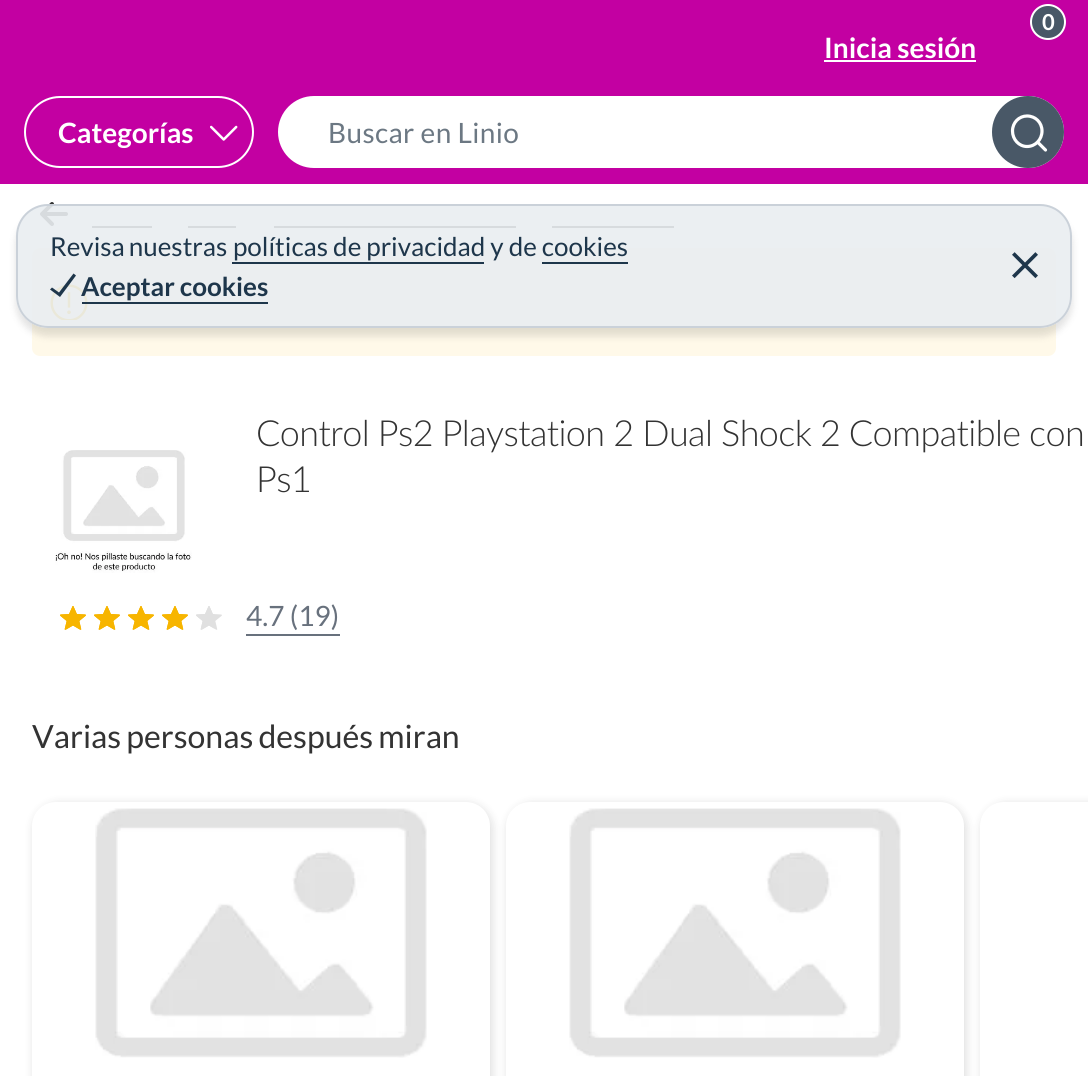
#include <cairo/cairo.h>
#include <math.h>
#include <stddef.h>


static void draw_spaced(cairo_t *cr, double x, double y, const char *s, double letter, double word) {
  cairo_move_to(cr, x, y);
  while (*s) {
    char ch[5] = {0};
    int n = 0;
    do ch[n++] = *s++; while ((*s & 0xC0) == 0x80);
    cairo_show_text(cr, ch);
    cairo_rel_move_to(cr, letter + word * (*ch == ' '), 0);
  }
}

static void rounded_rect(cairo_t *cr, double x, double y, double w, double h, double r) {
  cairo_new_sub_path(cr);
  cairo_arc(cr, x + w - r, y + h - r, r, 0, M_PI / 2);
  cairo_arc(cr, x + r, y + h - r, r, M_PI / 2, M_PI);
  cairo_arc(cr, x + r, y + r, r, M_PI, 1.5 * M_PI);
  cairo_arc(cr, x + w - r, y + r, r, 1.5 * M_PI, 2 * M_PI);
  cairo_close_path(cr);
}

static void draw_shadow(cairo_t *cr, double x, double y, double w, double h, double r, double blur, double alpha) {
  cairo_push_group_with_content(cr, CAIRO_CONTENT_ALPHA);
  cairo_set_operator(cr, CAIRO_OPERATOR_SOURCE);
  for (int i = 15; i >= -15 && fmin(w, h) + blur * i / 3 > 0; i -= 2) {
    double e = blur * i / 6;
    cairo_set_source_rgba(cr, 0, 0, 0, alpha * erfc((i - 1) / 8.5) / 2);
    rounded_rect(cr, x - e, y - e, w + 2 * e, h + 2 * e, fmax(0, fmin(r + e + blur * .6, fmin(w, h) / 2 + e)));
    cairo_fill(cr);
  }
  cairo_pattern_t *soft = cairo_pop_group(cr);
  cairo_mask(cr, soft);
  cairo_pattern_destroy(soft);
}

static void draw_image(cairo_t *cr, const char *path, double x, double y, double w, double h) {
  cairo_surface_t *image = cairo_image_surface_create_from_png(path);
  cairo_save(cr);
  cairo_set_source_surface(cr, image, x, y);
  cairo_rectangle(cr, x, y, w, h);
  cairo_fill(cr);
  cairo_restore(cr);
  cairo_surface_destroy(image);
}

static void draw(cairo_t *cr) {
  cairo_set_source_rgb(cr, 1, 1, 1);
  cairo_paint(cr);
  cairo_set_source_rgb(cr, 195 / 255.0, 0, 162 / 255.0);
  cairo_rectangle(cr, 0, 0, 1088, 184);
  cairo_fill(cr);
  cairo_set_source_rgb(cr, 73 / 255.0, 88 / 255.0, 103 / 255.0);
  cairo_arc(cr, 1048, 22, 17, 0, 2 * M_PI);
  cairo_fill_preserve(cr);
  cairo_set_source_rgb(cr, 1, 1, 1);
  cairo_stroke(cr);
  cairo_rectangle(cr, 824, 60, 152, 2);
  cairo_fill(cr);
  rounded_rect(cr, 25, 97, 228, 70, 35);
  cairo_stroke(cr);
  draw_image(cr, "images/1.png", 210, 125, 28, 16);
  rounded_rect(cr, 279, 97, 784, 70, 35);
  cairo_fill_preserve(cr);
  cairo_stroke(cr);
  cairo_set_source_rgb(cr, 73 / 255.0, 88 / 255.0, 103 / 255.0);
  cairo_arc(cr, 1028, 132, 35, 0, 2 * M_PI);
  cairo_fill_preserve(cr);
  cairo_stroke(cr);
  cairo_new_path(cr);
  cairo_move_to(cr, 1027, 146.5);
  cairo_curve_to(cr, 1035.5, 146.5, 1042, 139.5, 1042, 131);
  cairo_curve_to(cr, 1042, 122.5, 1035.5, 116, 1027, 116);
  cairo_curve_to(cr, 1019, 116, 1012.5, 122.5, 1012.5, 131);
  cairo_curve_to(cr, 1012.5, 139.5, 1019, 146.5, 1027, 146.5);
  cairo_close_path(cr);
  cairo_move_to(cr, 1045.5, 150);
  cairo_line_to(cr, 1037.5, 142);
  cairo_set_source_rgb(cr, 1, 1, 1);
  cairo_set_line_width(cr, 3.2);
  cairo_set_line_cap(cr, CAIRO_LINE_CAP_ROUND);
  cairo_set_line_join(cr, CAIRO_LINE_JOIN_ROUND);
  cairo_stroke(cr);
  draw_image(cr, "images/3.png", 40, 202, 28, 24);
  cairo_set_source_rgb(cr, 51 / 255.0, 51 / 255.0, 51 / 255.0);
  cairo_rectangle(cr, 92, 226, 60, 2);
  cairo_fill(cr);
  cairo_rectangle(cr, 188, 226, 48, 2);
  cairo_fill(cr);
  cairo_rectangle(cr, 274, 226, 242, 2);
  cairo_fill(cr);
  cairo_rectangle(cr, 552, 226, 122, 2);
  cairo_fill(cr);
  cairo_set_source_rgb(cr, 1, 249 / 255.0, 233 / 255.0);
  rounded_rect(cr, 32, 248, 1024, 108, 8);
  cairo_fill(cr);
  draw_image(cr, "images/4.png", 50, 284, 38, 36);
  cairo_save(cr);
  cairo_set_fill_rule(cr, CAIRO_FILL_RULE_EVEN_ODD);
  cairo_new_path(cr);
  cairo_move_to(cr, 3, 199);
  cairo_line_to(cr, 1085, 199);
  cairo_line_to(cr, 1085, 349);
  cairo_line_to(cr, 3, 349);
  cairo_close_path(cr);
  cairo_move_to(cr, 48, 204);
  cairo_line_to(cr, 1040, 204);
  cairo_curve_to(cr, 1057.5, 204, 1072, 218.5, 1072, 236);
  cairo_line_to(cr, 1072, 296);
  cairo_curve_to(cr, 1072, 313.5, 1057.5, 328, 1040, 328);
  cairo_line_to(cr, 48, 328);
  cairo_curve_to(cr, 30.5, 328, 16, 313.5, 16, 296);
  cairo_line_to(cr, 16, 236);
  cairo_curve_to(cr, 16, 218.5, 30.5, 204, 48, 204);
  cairo_close_path(cr);
  cairo_clip(cr);
  cairo_set_source_rgb(cr, 0, 0, 0);
  draw_shadow(cr, 16, 212, 1056, 124, 32, 4, 0.12);
  cairo_restore(cr);
  cairo_set_source_rgba(cr, 233 / 255.0, 237 / 255.0, 241 / 255.0, 0.9);
  rounded_rect(cr, 17, 205, 1054, 122, 31);
  cairo_fill_preserve(cr);
  cairo_set_source_rgb(cr, 202 / 255.0, 209 / 255.0, 217 / 255.0);
  cairo_set_line_width(cr, 2);
  cairo_set_line_cap(cr, CAIRO_LINE_CAP_BUTT);
  cairo_set_line_join(cr, CAIRO_LINE_JOIN_MITER);
  cairo_stroke(cr);
  cairo_set_source_rgb(cr, 30 / 255.0, 54 / 255.0, 75 / 255.0);
  cairo_rectangle(cr, 232, 262, 252, 2);
  cairo_fill(cr);
  cairo_rectangle(cr, 542, 262, 86, 2);
  cairo_fill(cr);
  cairo_new_path(cr);
  cairo_move_to(cr, 59, 292.5);
  cairo_line_to(cr, 73.5, 273.5);
  cairo_line_to(cr, 76, 275.5);
  cairo_line_to(cr, 60, 297);
  cairo_line_to(cr, 50, 289.5);
  cairo_line_to(cr, 52, 287.5);
  cairo_close_path(cr);
  cairo_fill(cr);
  cairo_rectangle(cr, 82, 302, 186, 2);
  cairo_fill(cr);
  draw_image(cr, "images/2.png", 1012, 252, 26, 27);
  draw_image(cr, "images/5.png", 55, 450, 137, 123);
  draw_image(cr, "images/6.png", 60, 606, 26, 24);
  draw_image(cr, "images/6.png", 94, 606, 26, 24);
  draw_image(cr, "images/6.png", 128, 606, 26, 24);
  draw_image(cr, "images/6.png", 162, 606, 26, 24);
  draw_image(cr, "images/7.png", 196, 606, 26, 24);
  cairo_set_source_rgb(cr, 104 / 255.0, 113 / 255.0, 125 / 255.0);
  cairo_rectangle(cr, 246, 634, 94, 2);
  cairo_fill(cr);
  cairo_set_source_rgb(cr, 0, 0, 0);
  draw_shadow(cr, 34, 804, 458, 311, 24, 5, 0.14);
  cairo_set_source_rgb(cr, 1, 1, 1);
  rounded_rect(cr, 32, 802, 458, 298, 24);
  cairo_fill(cr);
  draw_image(cr, "images/8.png", 95, 808, 332, 250);
  cairo_set_source_rgb(cr, 0, 0, 0);
  draw_shadow(cr, 508, 804, 458, 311, 24, 5, 0.14);
  cairo_set_source_rgb(cr, 1, 1, 1);
  rounded_rect(cr, 506, 802, 458, 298, 24);
  cairo_fill(cr);
  draw_image(cr, "images/8.png", 569, 808, 332, 250);
  cairo_set_source_rgb(cr, 0, 0, 0);
  draw_shadow(cr, 982, 804, 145, 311, 24, 5, 0.14);
  cairo_set_source_rgb(cr, 1, 1, 1);
  cairo_new_path(cr);
  cairo_move_to(cr, 1004, 802);
  cairo_line_to(cr, 1088, 802);
  cairo_line_to(cr, 1088, 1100);
  cairo_line_to(cr, 1004, 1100);
  cairo_curve_to(cr, 990.5, 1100, 980, 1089.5, 980, 1076);
  cairo_line_to(cr, 980, 826);
  cairo_curve_to(cr, 980, 812.5, 990.5, 802, 1004, 802);
  cairo_close_path(cr);
  cairo_fill(cr);
  cairo_select_font_face(cr, "Lato", CAIRO_FONT_SLANT_NORMAL, CAIRO_FONT_WEIGHT_BOLD);
  cairo_set_font_size(cr, 22);
  cairo_move_to(cr, 1042, 30);
  cairo_show_text(cr, "0");
  cairo_set_font_size(cr, 28);
  cairo_move_to(cr, 824, 58);
  cairo_show_text(cr, "Inicia sesión");
  cairo_move_to(cr, 58, 143);
  cairo_show_text(cr, "Categorías");
  cairo_select_font_face(cr, "Lato", CAIRO_FONT_SLANT_NORMAL, CAIRO_FONT_WEIGHT_NORMAL);
  cairo_set_source_rgb(cr, 108 / 255.0, 120 / 255.0, 131 / 255.0);
  draw_spaced(cr, 328, 143, "Buscar en Linio", 0.4, 0);
  cairo_set_font_size(cr, 26);
  cairo_set_source_rgb(cr, 30 / 255.0, 54 / 255.0, 75 / 255.0);
  draw_spaced(cr, 50, 256, "Revisa nuestras", 0, -1);
  cairo_move_to(cr, 233, 256);
  cairo_show_text(cr, "políticas de privacidad y de cookies");
  cairo_select_font_face(cr, "Lato", CAIRO_FONT_SLANT_NORMAL, CAIRO_FONT_WEIGHT_BOLD);
  cairo_move_to(cr, 81, 296);
  cairo_show_text(cr, "Aceptar cookies");
  cairo_select_font_face(cr, "Lato Light", CAIRO_FONT_SLANT_NORMAL, CAIRO_FONT_WEIGHT_NORMAL);
  cairo_set_font_size(cr, 36);
  cairo_set_source_rgb(cr, 51 / 255.0, 51 / 255.0, 51 / 255.0);
  draw_spaced(cr, 256, 446, "Control Ps2 Playstation 2 Dual Shock 2 Compatible con", -0.6, -0.5);
  draw_spaced(cr, 256, 492, "Ps1", -0.6, 0);
  cairo_select_font_face(cr, "Lato", CAIRO_FONT_SLANT_NORMAL, CAIRO_FONT_WEIGHT_NORMAL);
  cairo_set_font_size(cr, 28);
  cairo_set_source_rgb(cr, 104 / 255.0, 113 / 255.0, 125 / 255.0);
  cairo_move_to(cr, 246, 626);
  cairo_show_text(cr, "4.7 (19)");
  cairo_set_font_size(cr, 32);
  cairo_set_source_rgb(cr, 51 / 255.0, 51 / 255.0, 51 / 255.0);
  draw_spaced(cr, 32, 748, "Varias personas después miran", 0, -1);
}

int main(void) {
  cairo_surface_t *surface = cairo_image_surface_create(CAIRO_FORMAT_RGB24, 1088, 1076);
  cairo_t *cr = cairo_create(surface);
  cairo_font_options_t *options = cairo_font_options_create();
  cairo_font_options_set_hint_metrics(options, CAIRO_HINT_METRICS_OFF);
  cairo_font_options_set_hint_style(options, CAIRO_HINT_STYLE_NONE);
  cairo_set_font_options(cr, options);
  cairo_set_miter_limit(cr, 4);
  draw(cr);
  cairo_surface_write_to_png(surface, "out.png");
  cairo_font_options_destroy(options);
  cairo_destroy(cr);
  cairo_surface_destroy(surface);
  return 0;
}
